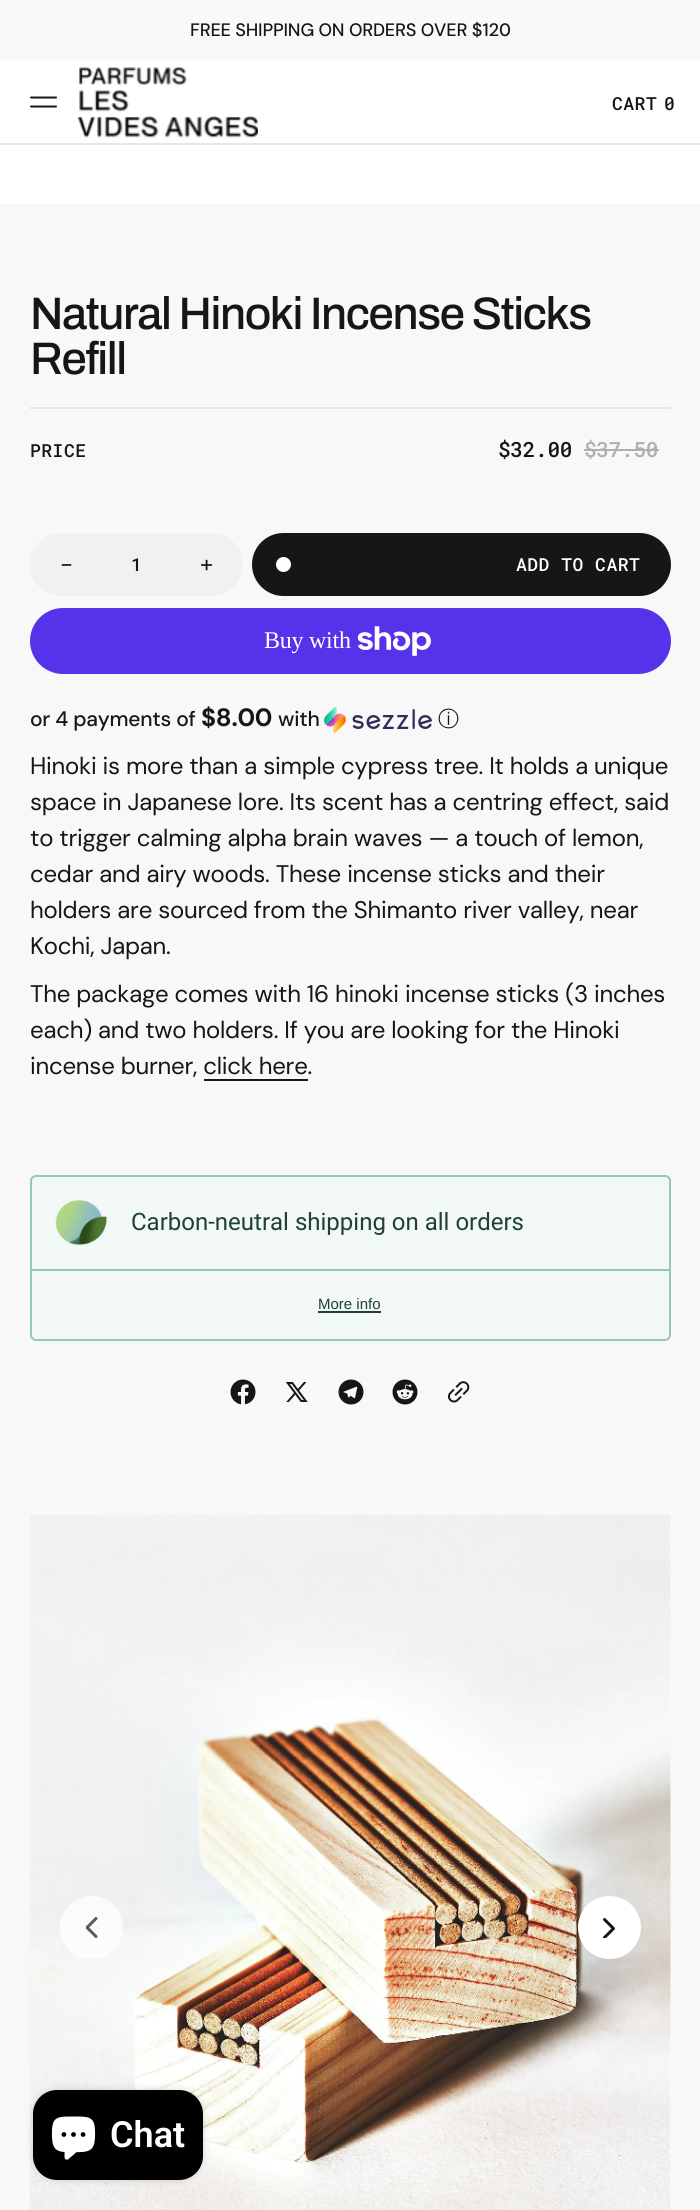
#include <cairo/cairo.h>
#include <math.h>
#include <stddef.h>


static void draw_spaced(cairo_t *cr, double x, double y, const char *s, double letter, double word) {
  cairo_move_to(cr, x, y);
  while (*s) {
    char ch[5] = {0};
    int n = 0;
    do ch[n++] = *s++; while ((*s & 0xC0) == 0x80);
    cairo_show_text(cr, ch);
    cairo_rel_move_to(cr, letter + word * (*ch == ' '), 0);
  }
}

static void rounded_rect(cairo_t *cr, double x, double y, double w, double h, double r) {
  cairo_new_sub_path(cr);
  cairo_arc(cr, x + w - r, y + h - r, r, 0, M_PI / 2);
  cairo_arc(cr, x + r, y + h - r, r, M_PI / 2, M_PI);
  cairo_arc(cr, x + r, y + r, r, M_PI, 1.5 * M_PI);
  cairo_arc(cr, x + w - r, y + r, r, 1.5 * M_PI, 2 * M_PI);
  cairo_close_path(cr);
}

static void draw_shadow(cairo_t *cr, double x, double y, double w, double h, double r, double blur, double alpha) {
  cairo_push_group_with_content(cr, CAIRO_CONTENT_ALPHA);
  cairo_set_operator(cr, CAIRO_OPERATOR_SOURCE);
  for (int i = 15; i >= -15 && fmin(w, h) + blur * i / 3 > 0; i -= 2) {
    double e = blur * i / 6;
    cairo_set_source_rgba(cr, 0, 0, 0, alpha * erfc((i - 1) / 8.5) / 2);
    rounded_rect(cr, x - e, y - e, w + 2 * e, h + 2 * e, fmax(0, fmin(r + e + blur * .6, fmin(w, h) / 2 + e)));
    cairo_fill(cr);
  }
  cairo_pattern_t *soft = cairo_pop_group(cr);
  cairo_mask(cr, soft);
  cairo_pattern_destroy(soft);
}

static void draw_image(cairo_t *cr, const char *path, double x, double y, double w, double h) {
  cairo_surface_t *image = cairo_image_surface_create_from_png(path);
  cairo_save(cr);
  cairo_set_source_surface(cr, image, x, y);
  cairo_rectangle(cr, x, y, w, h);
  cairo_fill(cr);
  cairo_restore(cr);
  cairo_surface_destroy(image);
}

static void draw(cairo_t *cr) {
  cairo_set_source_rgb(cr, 1, 1, 1);
  cairo_paint(cr);
  cairo_set_source_rgb(cr, 249 / 255.0, 249 / 255.0, 249 / 255.0);
  cairo_rectangle(cr, 0, 0, 700, 60);
  cairo_fill(cr);
  cairo_new_path(cr);
  cairo_move_to(cr, 31, 97.5);
  cairo_line_to(cr, 56, 97.5);
  cairo_move_to(cr, 31, 106.5);
  cairo_line_to(cr, 56, 106.5);
  cairo_set_source_rgb(cr, 22 / 255.0, 22 / 255.0, 22 / 255.0);
  cairo_set_line_cap(cr, CAIRO_LINE_CAP_ROUND);
  cairo_stroke(cr);
  draw_image(cr, "images/1.png", 78, 67, 180, 71);
  cairo_set_source_rgb(cr, 230 / 255.0, 230 / 255.0, 230 / 255.0);
  cairo_rectangle(cr, 0, 143, 700, 2);
  cairo_fill(cr);
  cairo_set_source_rgb(cr, 248 / 255.0, 248 / 255.0, 248 / 255.0);
  cairo_rectangle(cr, 0, 204, 700, 2006);
  cairo_fill(cr);
  cairo_set_source_rgb(cr, 230 / 255.0, 230 / 255.0, 230 / 255.0);
  cairo_rectangle(cr, 30, 407, 641, 2);
  cairo_fill(cr);
  cairo_set_source_rgb(cr, 175 / 255.0, 175 / 255.0, 175 / 255.0);
  cairo_rectangle(cr, 584, 449, 75, 2);
  cairo_fill(cr);
  cairo_set_source_rgb(cr, 241 / 255.0, 241 / 255.0, 241 / 255.0);
  rounded_rect(cr, 30, 533, 213, 63, 31.5);
  cairo_fill(cr);
  cairo_set_source_rgb(cr, 22 / 255.0, 22 / 255.0, 22 / 255.0);
  rounded_rect(cr, 252, 533, 419, 63, 31.5);
  cairo_fill(cr);
  cairo_set_source_rgb(cr, 1, 1, 1);
  cairo_arc(cr, 283.5, 564.5, 7.5, 0, 2 * M_PI);
  cairo_fill(cr);
  cairo_set_source_rgb(cr, 84 / 255.0, 51 / 255.0, 235 / 255.0);
  rounded_rect(cr, 30, 608, 641, 66, 33);
  cairo_fill(cr);
  draw_image(cr, "images/2.png", 357, 626, 74, 30);
  draw_image(cr, "images/3.png", 324, 707, 108, 27);
  cairo_set_source_rgb(cr, 22 / 255.0, 22 / 255.0, 22 / 255.0);
  cairo_rectangle(cr, 204, 1079, 104, 2);
  cairo_fill(cr);
  cairo_set_source_rgb(cr, 241 / 255.0, 248 / 255.0, 245 / 255.0);
  rounded_rect(cr, 31, 1176, 639, 164, 5);
  cairo_fill_preserve(cr);
  cairo_set_source_rgb(cr, 149 / 255.0, 201 / 255.0, 180 / 255.0);
  cairo_set_line_cap(cr, CAIRO_LINE_CAP_BUTT);
  cairo_stroke(cr);
  cairo_rectangle(cr, 32, 1269, 637, 2);
  cairo_fill(cr);
  draw_image(cr, "images/4.png", 55, 1200, 52, 45);
  cairo_set_source_rgb(cr, 29 / 255.0, 65 / 255.0, 54 / 255.0);
  cairo_rectangle(cr, 318, 1311, 63, 2);
  cairo_fill(cr);
  draw_image(cr, "images/5.png", 230, 1379, 26, 26);
  draw_image(cr, "images/6.png", 285, 1382, 23, 20);
  draw_image(cr, "images/7.png", 338, 1379, 26, 26);
  draw_image(cr, "images/8.png", 392, 1379, 26, 26);
  draw_image(cr, "images/9.png", 448, 1381, 22, 22);
  cairo_set_source_rgb(cr, 1, 1, 1);
  cairo_rectangle(cr, 670, 1515, 1, 695);
  cairo_fill(cr);
  draw_image(cr, "images/10.png", 30, 1515, 641, 695);
  cairo_set_source_rgba(cr, 1, 1, 1, 0.7);
  cairo_arc(cr, 91.5, 1927.5, 31.5, 0, 2 * M_PI);
  cairo_fill(cr);
  cairo_save(cr);
  cairo_rectangle(cr, 86, 1917, 12, 21);
  cairo_clip(cr);
  cairo_new_path(cr);
  cairo_move_to(cr, 96, 1936.5);
  cairo_line_to(cr, 87, 1927.5);
  cairo_line_to(cr, 96, 1918.5);
  cairo_set_source_rgba(cr, 22 / 255.0, 22 / 255.0, 22 / 255.0, 0.7);
  cairo_set_line_width(cr, 3);
  cairo_set_line_cap(cr, CAIRO_LINE_CAP_ROUND);
  cairo_set_line_join(cr, CAIRO_LINE_JOIN_ROUND);
  cairo_stroke(cr);
  cairo_restore(cr);
  cairo_set_source_rgb(cr, 0, 0, 0);
  draw_shadow(cr, 578, 1899, 63, 63, 31.5, 15, 0.06);
  cairo_set_source_rgb(cr, 1, 1, 1);
  cairo_arc(cr, 609.5, 1927.5, 31.5, 0, 2 * M_PI);
  cairo_fill(cr);
  cairo_save(cr);
  cairo_rectangle(cr, 603, 1917, 12, 21);
  cairo_clip(cr);
  cairo_new_path(cr);
  cairo_move_to(cr, 604.5, 1919.5);
  cairo_line_to(cr, 613.5, 1928.5);
  cairo_line_to(cr, 604.5, 1937.5);
  cairo_set_source_rgb(cr, 22 / 255.0, 22 / 255.0, 22 / 255.0);
  cairo_set_line_width(cr, 3);
  cairo_set_line_cap(cr, CAIRO_LINE_CAP_ROUND);
  cairo_set_line_join(cr, CAIRO_LINE_JOIN_ROUND);
  cairo_stroke(cr);
  cairo_restore(cr);
  cairo_set_source_rgb(cr, 0, 0, 0);
  draw_shadow(cr, 33, 2090, 170, 90, 24, 4, 0.15);
  cairo_set_source_rgb(cr, 0, 0, 0);
  rounded_rect(cr, 33, 2090, 170, 90, 24);
  cairo_fill(cr);
  draw_image(cr, "images/11.png", 51, 2116, 45, 44);
  cairo_select_font_face(cr, "DM Sans Medium", CAIRO_FONT_SLANT_NORMAL, CAIRO_FONT_WEIGHT_NORMAL);
  cairo_set_font_size(cr, 18);
  cairo_set_source_rgb(cr, 22 / 255.0, 22 / 255.0, 22 / 255.0);
  draw_spaced(cr, 190, 36, "FREE SHIPPING ON ORDERS OVER $120", -0.2, 0);
  cairo_select_font_face(cr, "Roboto Mono Medium", CAIRO_FONT_SLANT_NORMAL, CAIRO_FONT_WEIGHT_NORMAL);
  draw_spaced(cr, 612, 110, "CART", 0.5, 0);
  draw_spaced(cr, 664, 110, "0", 0.5, 0);
  cairo_select_font_face(cr, "Archivo Medium", CAIRO_FONT_SLANT_NORMAL, CAIRO_FONT_WEIGHT_NORMAL);
  cairo_set_font_size(cr, 45.6);
  draw_spaced(cr, 30, 329, "Natural Hinoki Incense Sticks", -1.4, 0);
  draw_spaced(cr, 30, 374, "Refill", -1.4, 0);
  cairo_select_font_face(cr, "Roboto Mono Medium", CAIRO_FONT_SLANT_NORMAL, CAIRO_FONT_WEIGHT_NORMAL);
  cairo_set_font_size(cr, 18);
  draw_spaced(cr, 30, 457, "PRICE", 0.5, 0);
  cairo_set_font_size(cr, 21);
  draw_spaced(cr, 498, 457, "$32.00", -0.25, 0);
  cairo_set_source_rgb(cr, 175 / 255.0, 175 / 255.0, 175 / 255.0);
  draw_spaced(cr, 584, 457, "$37.50", -0.25, 0);
  cairo_select_font_face(cr, "DM Sans", CAIRO_FONT_SLANT_NORMAL, CAIRO_FONT_WEIGHT_NORMAL);
  cairo_set_font_size(cr, 24);
  cairo_set_source_rgb(cr, 22 / 255.0, 22 / 255.0, 22 / 255.0);
  cairo_move_to(cr, 60, 572);
  cairo_show_text(cr, "-");
  cairo_select_font_face(cr, "Roboto Mono Medium", CAIRO_FONT_SLANT_NORMAL, CAIRO_FONT_WEIGHT_NORMAL);
  cairo_set_font_size(cr, 18);
  cairo_move_to(cr, 131, 571);
  cairo_show_text(cr, "1");
  cairo_select_font_face(cr, "DM Sans", CAIRO_FONT_SLANT_NORMAL, CAIRO_FONT_WEIGHT_NORMAL);
  cairo_set_font_size(cr, 24);
  cairo_move_to(cr, 200, 572);
  cairo_show_text(cr, "+");
  cairo_select_font_face(cr, "Roboto Mono Medium", CAIRO_FONT_SLANT_NORMAL, CAIRO_FONT_WEIGHT_NORMAL);
  cairo_set_font_size(cr, 18);
  cairo_set_source_rgb(cr, 1, 1, 1);
  draw_spaced(cr, 516, 571, "ADD TO CART", 0.5, 0);
  cairo_select_font_face(cr, "Liberation Serif", CAIRO_FONT_SLANT_NORMAL, CAIRO_FONT_WEIGHT_NORMAL);
  cairo_set_font_size(cr, 24);
  draw_spaced(cr, 264, 648, "Buy with", -0.25, 0);
  cairo_select_font_face(cr, "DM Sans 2 Medium", CAIRO_FONT_SLANT_NORMAL, CAIRO_FONT_WEIGHT_NORMAL);
  cairo_set_font_size(cr, 21);
  cairo_set_source_rgb(cr, 22 / 255.0, 22 / 255.0, 22 / 255.0);
  draw_spaced(cr, 30, 726, "or 4 payments of", -0.25, 0);
  cairo_select_font_face(cr, "DM Sans", CAIRO_FONT_SLANT_NORMAL, CAIRO_FONT_WEIGHT_BOLD);
  cairo_set_font_size(cr, 25);
  draw_spaced(cr, 201, 726, "$8.00", -0.25, 0);
  cairo_select_font_face(cr, "DM Sans 2 Medium", CAIRO_FONT_SLANT_NORMAL, CAIRO_FONT_WEIGHT_NORMAL);
  cairo_set_font_size(cr, 21);
  draw_spaced(cr, 278, 726, "with", -0.25, 0);
  cairo_select_font_face(cr, "WenQuanYi Zen Hei Medium", CAIRO_FONT_SLANT_NORMAL, CAIRO_FONT_WEIGHT_NORMAL);
  draw_spaced(cr, 438, 726, "ⓘ", -0.25, 0);
  cairo_select_font_face(cr, "DM Sans", CAIRO_FONT_SLANT_NORMAL, CAIRO_FONT_WEIGHT_NORMAL);
  cairo_set_font_size(cr, 24);
  draw_spaced(cr, 30, 774, "Hinoki is more than a simple cypress tree. It holds a unique", -0.25, 0);
  draw_spaced(cr, 30, 810, "space in Japanese lore. Its scent has a centring effect, said", -0.25, 0);
  draw_spaced(cr, 30, 846, "to trigger calming alpha brain waves — a touch of lemon,", -0.25, 0);
  draw_spaced(cr, 30, 882, "cedar and airy woods. These incense sticks and their", -0.25, 0);
  draw_spaced(cr, 30, 918, "holders are sourced from the Shimanto river valley, near", -0.25, 0);
  draw_spaced(cr, 30, 954, "Kochi, Japan.", -0.25, 0);
  draw_spaced(cr, 30, 1002, "The package comes with 16 hinoki incense sticks (3 inches", -0.25, 0);
  draw_spaced(cr, 30, 1038, "each) and two holders. If you are looking for the Hinoki", -0.25, 0);
  draw_spaced(cr, 30, 1074, "incense burner, click here.", -0.25, 0);
  cairo_select_font_face(cr, "Roboto", CAIRO_FONT_SLANT_NORMAL, CAIRO_FONT_WEIGHT_NORMAL);
  cairo_set_source_rgb(cr, 29 / 255.0, 65 / 255.0, 54 / 255.0);
  cairo_move_to(cr, 131, 1230);
  cairo_show_text(cr, "Carbon-neutral shipping on all orders");
  cairo_select_font_face(cr, "Liberation Sans", CAIRO_FONT_SLANT_NORMAL, CAIRO_FONT_WEIGHT_NORMAL);
  cairo_set_font_size(cr, 15);
  cairo_move_to(cr, 318, 1309);
  cairo_show_text(cr, "More info");
  cairo_select_font_face(cr, "Roboto SemiBold", CAIRO_FONT_SLANT_NORMAL, CAIRO_FONT_WEIGHT_NORMAL);
  cairo_set_font_size(cr, 36);
  cairo_set_source_rgb(cr, 1, 1, 1);
  cairo_move_to(cr, 110, 2147);
  cairo_show_text(cr, "Chat");
}

int main(void) {
  cairo_surface_t *surface = cairo_image_surface_create(CAIRO_FORMAT_RGB24, 700, 2210);
  cairo_t *cr = cairo_create(surface);
  cairo_font_options_t *options = cairo_font_options_create();
  cairo_font_options_set_hint_metrics(options, CAIRO_HINT_METRICS_OFF);
  cairo_font_options_set_hint_style(options, CAIRO_HINT_STYLE_NONE);
  cairo_set_font_options(cr, options);
  cairo_set_miter_limit(cr, 4);
  draw(cr);
  cairo_surface_write_to_png(surface, "out.png");
  cairo_font_options_destroy(options);
  cairo_destroy(cr);
  cairo_surface_destroy(surface);
  return 0;
}
